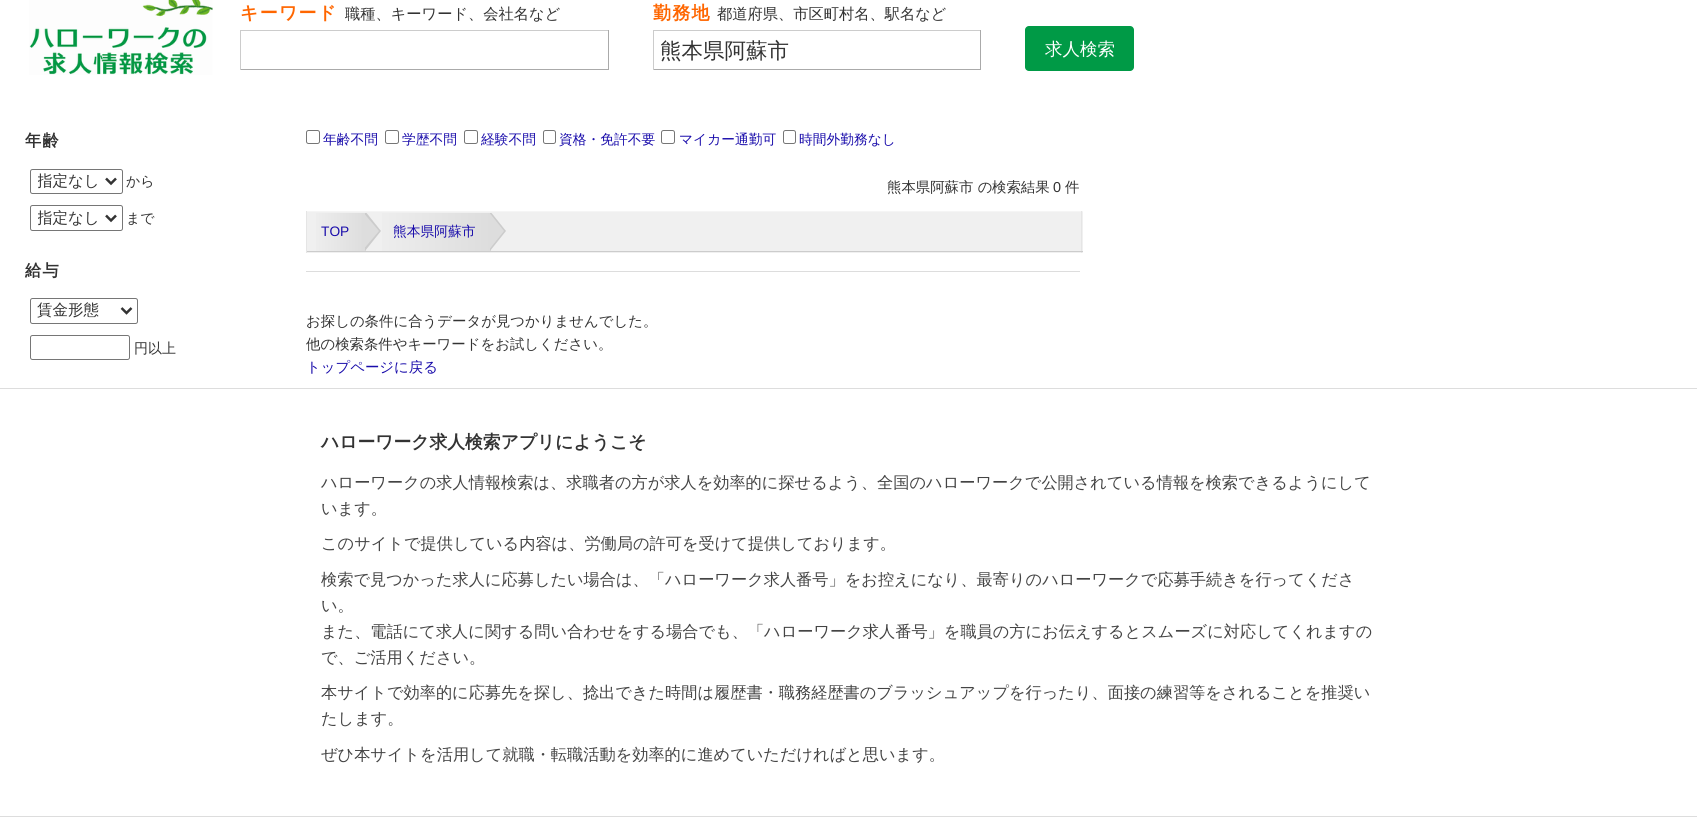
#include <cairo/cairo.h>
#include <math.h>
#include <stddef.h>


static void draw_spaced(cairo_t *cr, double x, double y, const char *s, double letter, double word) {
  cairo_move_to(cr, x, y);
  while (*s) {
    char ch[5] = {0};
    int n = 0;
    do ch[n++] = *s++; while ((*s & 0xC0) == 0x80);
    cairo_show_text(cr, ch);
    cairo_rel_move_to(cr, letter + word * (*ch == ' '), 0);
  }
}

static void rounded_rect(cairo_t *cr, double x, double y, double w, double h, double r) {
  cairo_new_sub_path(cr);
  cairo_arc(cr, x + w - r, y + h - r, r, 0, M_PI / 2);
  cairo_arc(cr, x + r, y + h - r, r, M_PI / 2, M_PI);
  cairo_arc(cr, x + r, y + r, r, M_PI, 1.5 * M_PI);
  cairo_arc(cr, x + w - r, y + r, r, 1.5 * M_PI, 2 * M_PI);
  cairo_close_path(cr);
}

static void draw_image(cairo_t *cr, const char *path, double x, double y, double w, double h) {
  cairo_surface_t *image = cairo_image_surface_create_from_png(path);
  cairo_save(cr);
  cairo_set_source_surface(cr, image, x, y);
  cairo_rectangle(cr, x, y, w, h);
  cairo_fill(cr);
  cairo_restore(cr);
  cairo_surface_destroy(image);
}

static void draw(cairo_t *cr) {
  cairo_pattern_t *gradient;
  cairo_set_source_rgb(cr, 1, 1, 1);
  cairo_paint(cr);
  draw_image(cr, "images/1.png", 29, 0, 184, 75);
  cairo_set_source_rgb(cr, 204 / 255.0, 204 / 255.0, 204 / 255.0);
  cairo_rectangle(cr, 240, 30, 369, 1);
  cairo_fill(cr);
  cairo_set_source_rgb(cr, 170 / 255.0, 170 / 255.0, 170 / 255.0);
  cairo_rectangle(cr, 608, 30, 1, 40);
  cairo_fill(cr);
  cairo_rectangle(cr, 240, 69, 369, 1);
  cairo_fill(cr);
  cairo_set_source_rgb(cr, 204 / 255.0, 204 / 255.0, 204 / 255.0);
  cairo_rectangle(cr, 240, 30, 1, 40);
  cairo_fill(cr);
  cairo_rectangle(cr, 653, 30, 328, 1);
  cairo_fill(cr);
  cairo_set_source_rgb(cr, 170 / 255.0, 170 / 255.0, 170 / 255.0);
  cairo_rectangle(cr, 980, 30, 1, 40);
  cairo_fill(cr);
  cairo_rectangle(cr, 653, 69, 328, 1);
  cairo_fill(cr);
  cairo_set_source_rgb(cr, 204 / 255.0, 204 / 255.0, 204 / 255.0);
  cairo_rectangle(cr, 653, 30, 1, 40);
  cairo_fill(cr);
  cairo_set_source_rgb(cr, 0, 154 / 255.0, 70 / 255.0);
  rounded_rect(cr, 1025, 26, 109, 45, 4);
  cairo_fill(cr);
  rounded_rect(cr, 30.5, 169.5, 92, 24, 2);
  cairo_set_source_rgb(cr, 118 / 255.0, 118 / 255.0, 118 / 255.0);
  cairo_set_line_width(cr, 1);
  cairo_stroke(cr);
  cairo_new_path(cr);
  cairo_move_to(cr, 106, 178.5);
  cairo_line_to(cr, 111, 183.5);
  cairo_line_to(cr, 116, 178.5);
  cairo_set_source_rgb(cr, 51 / 255.0, 51 / 255.0, 51 / 255.0);
  cairo_set_line_width(cr, 2.5);
  cairo_stroke(cr);
  rounded_rect(cr, 30.5, 205.5, 92, 25, 2);
  cairo_set_source_rgb(cr, 118 / 255.0, 118 / 255.0, 118 / 255.0);
  cairo_set_line_width(cr, 1);
  cairo_stroke(cr);
  cairo_new_path(cr);
  cairo_move_to(cr, 106, 215.5);
  cairo_line_to(cr, 111, 220.5);
  cairo_line_to(cr, 116, 215.5);
  cairo_set_source_rgb(cr, 51 / 255.0, 51 / 255.0, 51 / 255.0);
  cairo_set_line_width(cr, 2.5);
  cairo_stroke(cr);
  rounded_rect(cr, 30.5, 298.5, 107, 25, 2);
  cairo_set_source_rgb(cr, 118 / 255.0, 118 / 255.0, 118 / 255.0);
  cairo_set_line_width(cr, 1);
  cairo_stroke(cr);
  cairo_new_path(cr);
  cairo_move_to(cr, 121.5, 308);
  cairo_line_to(cr, 126.5, 313);
  cairo_line_to(cr, 131.5, 308);
  cairo_set_source_rgb(cr, 51 / 255.0, 51 / 255.0, 51 / 255.0);
  cairo_set_line_width(cr, 2.5);
  cairo_stroke(cr);
  rounded_rect(cr, 30.5, 335.5, 99, 24, 2);
  cairo_set_source_rgb(cr, 118 / 255.0, 118 / 255.0, 118 / 255.0);
  cairo_set_line_width(cr, 1);
  cairo_stroke(cr);
  rounded_rect(cr, 306.5, 130.5, 13, 13, 2);
  cairo_stroke(cr);
  rounded_rect(cr, 385.5, 130.5, 13, 13, 2);
  cairo_stroke(cr);
  rounded_rect(cr, 464.5, 130.5, 13, 13, 2);
  cairo_stroke(cr);
  rounded_rect(cr, 543.5, 130.5, 12, 13, 2);
  cairo_stroke(cr);
  rounded_rect(cr, 661.5, 130.5, 13, 13, 2);
  cairo_stroke(cr);
  rounded_rect(cr, 783.5, 130.5, 12, 13, 2);
  cairo_stroke(cr);
  cairo_set_source_rgb(cr, 240 / 255.0, 240 / 255.0, 240 / 255.0);
  cairo_rectangle(cr, 307, 212, 776, 41);
  cairo_fill(cr);
  cairo_set_source_rgb(cr, 245 / 255.0, 245 / 255.0, 245 / 255.0);
  cairo_rectangle(cr, 306, 211, 777, 1);
  cairo_fill(cr);
  cairo_set_source_rgb(cr, 229 / 255.0, 229 / 255.0, 229 / 255.0);
  cairo_rectangle(cr, 1081, 211, 1, 42);
  cairo_fill(cr);
  cairo_set_source_rgb(cr, 204 / 255.0, 204 / 255.0, 204 / 255.0);
  cairo_rectangle(cr, 306, 251, 777, 1);
  cairo_fill(cr);
  cairo_set_source_rgb(cr, 229 / 255.0, 229 / 255.0, 229 / 255.0);
  cairo_rectangle(cr, 306, 211, 1, 42);
  cairo_fill(cr);
  gradient = cairo_pattern_create_linear(308, 232, 366, 232);
  cairo_pattern_add_color_stop_rgba(gradient, 0, 240 / 255.0, 240 / 255.0, 240 / 255.0, 1);
  cairo_pattern_add_color_stop_rgba(gradient, 1, 221 / 255.0, 221 / 255.0, 221 / 255.0, 1);
  cairo_set_source(cr, gradient);
  cairo_pattern_destroy(gradient);
  cairo_rectangle(cr, 316, 213, 50, 38);
  cairo_fill(cr);
  cairo_save(cr);
  cairo_rectangle(cr, 308, 213, 773, 38);
  cairo_clip(cr);
  cairo_set_source_rgb(cr, 204 / 255.0, 204 / 255.0, 204 / 255.0);
  cairo_new_path(cr);
  cairo_move_to(cr, 365, 251);
  cairo_line_to(cr, 365, 211);
  cairo_line_to(cr, 381, 231);
  cairo_close_path(cr);
  cairo_fill(cr);
  cairo_set_source_rgb(cr, 221 / 255.0, 221 / 255.0, 221 / 255.0);
  cairo_new_path(cr);
  cairo_move_to(cr, 362, 251);
  cairo_line_to(cr, 362, 211);
  cairo_line_to(cr, 379, 231);
  cairo_close_path(cr);
  cairo_fill(cr);
  cairo_restore(cr);
  gradient = cairo_pattern_create_linear(366, 232, 491, 232);
  cairo_pattern_add_color_stop_rgba(gradient, 0, 240 / 255.0, 240 / 255.0, 240 / 255.0, 1);
  cairo_pattern_add_color_stop_rgba(gradient, 1, 221 / 255.0, 221 / 255.0, 221 / 255.0, 1);
  cairo_set_source(cr, gradient);
  cairo_pattern_destroy(gradient);
  cairo_rectangle(cr, 382, 213, 109, 38);
  cairo_fill(cr);
  cairo_save(cr);
  cairo_rectangle(cr, 308, 213, 773, 38);
  cairo_clip(cr);
  cairo_set_source_rgb(cr, 204 / 255.0, 204 / 255.0, 204 / 255.0);
  cairo_new_path(cr);
  cairo_move_to(cr, 490, 251);
  cairo_line_to(cr, 490, 211);
  cairo_line_to(cr, 506, 231);
  cairo_close_path(cr);
  cairo_fill(cr);
  cairo_set_source_rgb(cr, 221 / 255.0, 221 / 255.0, 221 / 255.0);
  cairo_new_path(cr);
  cairo_move_to(cr, 488, 251);
  cairo_line_to(cr, 488, 211);
  cairo_line_to(cr, 504, 231);
  cairo_close_path(cr);
  cairo_fill(cr);
  cairo_restore(cr);
  cairo_set_source_rgb(cr, 221 / 255.0, 221 / 255.0, 221 / 255.0);
  cairo_rectangle(cr, 306, 271, 774, 1);
  cairo_fill(cr);
  cairo_rectangle(cr, 0, 388, 1697, 1);
  cairo_fill(cr);
  cairo_rectangle(cr, 0, 816, 1697, 1);
  cairo_fill(cr);
  cairo_select_font_face(cr, "WenQuanYi Zen Hei", CAIRO_FONT_SLANT_NORMAL, CAIRO_FONT_WEIGHT_BOLD);
  cairo_set_font_size(cr, 18);
  cairo_set_source_rgb(cr, 1, 102 / 255.0, 0);
  draw_spaced(cr, 240, 19, "キーワード", 1.25, 0);
  cairo_select_font_face(cr, "WenQuanYi Zen Hei Medium", CAIRO_FONT_SLANT_NORMAL, CAIRO_FONT_WEIGHT_NORMAL);
  cairo_set_font_size(cr, 15.25);
  cairo_set_source_rgb(cr, 51 / 255.0, 51 / 255.0, 51 / 255.0);
  cairo_move_to(cr, 345, 19);
  cairo_show_text(cr, "職種、キーワード、会社名など");
  cairo_select_font_face(cr, "WenQuanYi Zen Hei", CAIRO_FONT_SLANT_NORMAL, CAIRO_FONT_WEIGHT_BOLD);
  cairo_set_font_size(cr, 18);
  cairo_set_source_rgb(cr, 1, 102 / 255.0, 0);
  draw_spaced(cr, 653, 19, "勤務地", 1.25, 0);
  cairo_select_font_face(cr, "WenQuanYi Zen Hei Medium", CAIRO_FONT_SLANT_NORMAL, CAIRO_FONT_WEIGHT_NORMAL);
  cairo_set_font_size(cr, 15.25);
  cairo_set_source_rgb(cr, 51 / 255.0, 51 / 255.0, 51 / 255.0);
  cairo_move_to(cr, 717, 19);
  cairo_show_text(cr, "都道府県、市区町村名、駅名など");
  cairo_set_font_size(cr, 21.5);
  cairo_move_to(cr, 660, 58);
  cairo_show_text(cr, "熊本県阿蘇市");
  cairo_set_font_size(cr, 17.5);
  cairo_set_source_rgb(cr, 1, 1, 1);
  cairo_move_to(cr, 1045, 55);
  cairo_show_text(cr, "求人検索");
  cairo_select_font_face(cr, "WenQuanYi Zen Hei", CAIRO_FONT_SLANT_NORMAL, CAIRO_FONT_WEIGHT_BOLD);
  cairo_set_font_size(cr, 16.2);
  cairo_set_source_rgb(cr, 51 / 255.0, 51 / 255.0, 51 / 255.0);
  draw_spaced(cr, 25, 146, "年齢", 1.25, 0);
  cairo_save(cr);
  cairo_rectangle(cr, 38, 171, 61, 20);
  cairo_clip(cr);
  cairo_select_font_face(cr, "WenQuanYi Zen Hei Medium", CAIRO_FONT_SLANT_NORMAL, CAIRO_FONT_WEIGHT_NORMAL);
  cairo_set_font_size(cr, 15.5);
  cairo_move_to(cr, 37, 186);
  cairo_show_text(cr, "指定なし");
  cairo_restore(cr);
  cairo_select_font_face(cr, "WenQuanYi Zen Hei Medium", CAIRO_FONT_SLANT_NORMAL, CAIRO_FONT_WEIGHT_NORMAL);
  cairo_set_font_size(cr, 14);
  cairo_move_to(cr, 126, 186);
  cairo_show_text(cr, "から");
  cairo_save(cr);
  cairo_rectangle(cr, 38, 209, 61, 20);
  cairo_clip(cr);
  cairo_set_font_size(cr, 15.5);
  cairo_move_to(cr, 37, 223);
  cairo_show_text(cr, "指定なし");
  cairo_restore(cr);
  cairo_move_to(cr, 126, 223);
  cairo_show_text(cr, "まで");
  cairo_select_font_face(cr, "WenQuanYi Zen Hei", CAIRO_FONT_SLANT_NORMAL, CAIRO_FONT_WEIGHT_BOLD);
  cairo_set_font_size(cr, 16.2);
  draw_spaced(cr, 25, 276, "給与", 1.25, 0);
  cairo_select_font_face(cr, "WenQuanYi Zen Hei Medium", CAIRO_FONT_SLANT_NORMAL, CAIRO_FONT_WEIGHT_NORMAL);
  cairo_set_font_size(cr, 15.5);
  cairo_move_to(cr, 37, 315);
  cairo_show_text(cr, "賃金形態");
  cairo_set_font_size(cr, 14);
  cairo_move_to(cr, 134, 353);
  cairo_show_text(cr, "円以上");
  cairo_set_font_size(cr, 13.75);
  cairo_set_source_rgb(cr, 26 / 255.0, 13 / 255.0, 171 / 255.0);
  cairo_move_to(cr, 323, 144);
  cairo_show_text(cr, "年齢不問");
  cairo_move_to(cr, 402, 144);
  cairo_show_text(cr, "学歴不問");
  cairo_move_to(cr, 481, 144);
  cairo_show_text(cr, "経験不問");
  cairo_move_to(cr, 559, 144);
  cairo_show_text(cr, "資格・免許不要");
  cairo_move_to(cr, 679, 144);
  cairo_show_text(cr, "マイカー通勤可");
  cairo_move_to(cr, 799, 144);
  cairo_show_text(cr, "時間外勤務なし");
  cairo_set_font_size(cr, 14.4);
  cairo_set_source_rgb(cr, 51 / 255.0, 51 / 255.0, 51 / 255.0);
  cairo_move_to(cr, 887, 192);
  cairo_show_text(cr, "熊本県阿蘇市 の");
  cairo_move_to(cr, 992, 192);
  cairo_show_text(cr, "検索結果");
  cairo_select_font_face(cr, "Liberation Sans", CAIRO_FONT_SLANT_NORMAL, CAIRO_FONT_WEIGHT_NORMAL);
  cairo_move_to(cr, 1053, 192);
  cairo_show_text(cr, "0");
  cairo_select_font_face(cr, "WenQuanYi Zen Hei Medium", CAIRO_FONT_SLANT_NORMAL, CAIRO_FONT_WEIGHT_NORMAL);
  cairo_move_to(cr, 1065, 192);
  cairo_show_text(cr, "件");
  cairo_select_font_face(cr, "Liberation Sans", CAIRO_FONT_SLANT_NORMAL, CAIRO_FONT_WEIGHT_NORMAL);
  cairo_set_font_size(cr, 13.75);
  cairo_set_source_rgb(cr, 26 / 255.0, 13 / 255.0, 171 / 255.0);
  cairo_move_to(cr, 321, 236);
  cairo_show_text(cr, "TOP");
  cairo_select_font_face(cr, "WenQuanYi Zen Hei Medium", CAIRO_FONT_SLANT_NORMAL, CAIRO_FONT_WEIGHT_NORMAL);
  cairo_move_to(cr, 393, 236);
  cairo_show_text(cr, "熊本県阿蘇市");
  cairo_set_font_size(cr, 14.4);
  cairo_set_source_rgb(cr, 51 / 255.0, 51 / 255.0, 51 / 255.0);
  cairo_move_to(cr, 306, 326);
  cairo_show_text(cr, "お探しの条件に合うデータが見つかりませんでした。");
  cairo_move_to(cr, 306, 349);
  cairo_show_text(cr, "他の検索条件やキーワードをお試しください。");
  cairo_set_source_rgb(cr, 26 / 255.0, 13 / 255.0, 171 / 255.0);
  cairo_move_to(cr, 306, 372);
  cairo_show_text(cr, "トップページに戻る");
  cairo_select_font_face(cr, "WenQuanYi Zen Hei", CAIRO_FONT_SLANT_NORMAL, CAIRO_FONT_WEIGHT_BOLD);
  cairo_set_font_size(cr, 17.8);
  cairo_set_source_rgb(cr, 51 / 255.0, 51 / 255.0, 51 / 255.0);
  cairo_move_to(cr, 321, 448);
  cairo_show_text(cr, "ハローワーク求人検索アプリにようこそ");
  cairo_select_font_face(cr, "WenQuanYi Zen Hei Medium", CAIRO_FONT_SLANT_NORMAL, CAIRO_FONT_WEIGHT_NORMAL);
  cairo_set_font_size(cr, 16.2);
  cairo_set_source_rgb(cr, 68 / 255.0, 68 / 255.0, 68 / 255.0);
  cairo_move_to(cr, 321, 488);
  cairo_show_text(cr, "ハローワークの求人情報検索は、求職者の方が求人を効率的に探せるよう、全国のハローワークで公開されている情報を検索できるようにして");
  cairo_move_to(cr, 321, 514);
  cairo_show_text(cr, "います。");
  cairo_move_to(cr, 321, 549);
  cairo_show_text(cr, "このサイトで提供している内容は、労働局の許可を受けて提供しております。");
  cairo_move_to(cr, 321, 585);
  cairo_show_text(cr, "検索で見つかった求人に応募したい場合は、「ハローワーク求人番号」をお控えになり、最寄りのハローワークで応募手続きを行ってくださ");
  cairo_move_to(cr, 321, 611);
  cairo_show_text(cr, "い。");
  cairo_move_to(cr, 321, 637);
  cairo_show_text(cr, "また、電話にて求人に関する問い合わせをする場合でも、「ハローワーク求人番号」を職員の方にお伝えするとスムーズに対応してくれますの");
  cairo_move_to(cr, 321, 663);
  cairo_show_text(cr, "で、ご活用ください。");
  cairo_move_to(cr, 321, 698);
  cairo_show_text(cr, "本サイトで効率的に応募先を探し、捻出できた時間は履歴書・職務経歴書のブラッシュアップを行ったり、面接の練習等をされることを推奨い");
  cairo_move_to(cr, 321, 724);
  cairo_show_text(cr, "たします。");
  cairo_move_to(cr, 321, 760);
  cairo_show_text(cr, "ぜひ本サイトを活用して就職・転職活動を効率的に進めていただければと思います。");
}

int main(void) {
  cairo_surface_t *surface = cairo_image_surface_create(CAIRO_FORMAT_RGB24, 1697, 838);
  cairo_t *cr = cairo_create(surface);
  cairo_font_options_t *options = cairo_font_options_create();
  cairo_font_options_set_hint_metrics(options, CAIRO_HINT_METRICS_OFF);
  cairo_font_options_set_hint_style(options, CAIRO_HINT_STYLE_NONE);
  cairo_set_font_options(cr, options);
  cairo_set_miter_limit(cr, 4);
  draw(cr);
  cairo_surface_write_to_png(surface, "out.png");
  cairo_font_options_destroy(options);
  cairo_destroy(cr);
  cairo_surface_destroy(surface);
  return 0;
}
